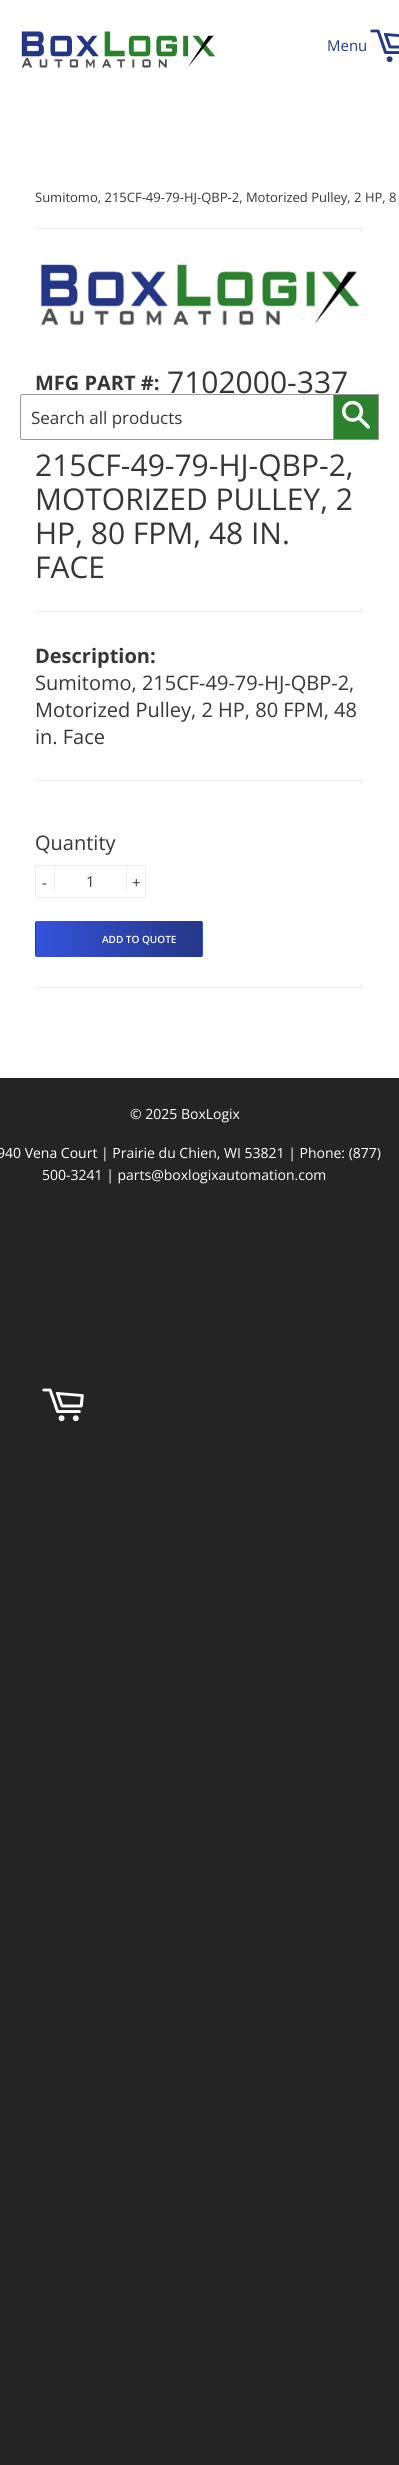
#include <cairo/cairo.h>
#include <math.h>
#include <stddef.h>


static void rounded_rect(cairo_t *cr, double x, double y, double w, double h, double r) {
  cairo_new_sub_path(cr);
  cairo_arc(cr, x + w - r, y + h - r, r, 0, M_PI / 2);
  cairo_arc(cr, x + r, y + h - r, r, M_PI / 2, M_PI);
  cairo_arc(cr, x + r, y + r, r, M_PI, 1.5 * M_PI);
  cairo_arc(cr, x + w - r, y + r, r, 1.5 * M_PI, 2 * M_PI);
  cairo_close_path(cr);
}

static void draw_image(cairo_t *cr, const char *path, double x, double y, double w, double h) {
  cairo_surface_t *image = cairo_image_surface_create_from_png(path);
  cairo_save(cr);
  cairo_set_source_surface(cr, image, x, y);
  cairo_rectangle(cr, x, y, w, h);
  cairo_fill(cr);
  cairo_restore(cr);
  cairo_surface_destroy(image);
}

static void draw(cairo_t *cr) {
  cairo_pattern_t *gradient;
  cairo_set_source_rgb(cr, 36 / 255.0, 36 / 255.0, 36 / 255.0);
  cairo_paint(cr);
  cairo_set_source_rgb(cr, 1, 1, 1);
  cairo_rectangle(cr, 0, 0, 399, 1078);
  cairo_fill(cr);
  draw_image(cr, "images/1.png", 370, 29, 29, 34);
  cairo_set_source_rgb(cr, 236 / 255.0, 236 / 255.0, 236 / 255.0);
  cairo_rectangle(cr, 35, 228, 329, 1);
  cairo_fill(cr);
  draw_image(cr, "images/2.png", 40, 259, 320, 67);
  cairo_rectangle(cr, 35, 611, 329, 1);
  cairo_fill(cr);
  cairo_rectangle(cr, 35, 780, 329, 1);
  cairo_fill(cr);
  rounded_rect(cr, 35.5, 865.5, 110, 32, 1.5);
  cairo_set_line_width(cr, 1);
  cairo_stroke(cr);
  cairo_rectangle(cr, 54, 865, 1, 26);
  cairo_fill(cr);
  cairo_rectangle(cr, 126, 865, 1, 26);
  cairo_fill(cr);
  cairo_save(cr);
  rounded_rect(cr, 35, 921, 168, 36, 2);
  cairo_clip(cr);
  gradient = cairo_pattern_create_linear(-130, 939, 36, 939);
  cairo_pattern_add_color_stop_rgba(gradient, 0, 52 / 255.0, 83 / 255.0, 219 / 255.0, 1);
  cairo_pattern_add_color_stop_rgba(gradient, 1, 37 / 255.0, 55 / 255.0, 135 / 255.0, 1);
  cairo_set_source(cr, gradient);
  cairo_pattern_destroy(gradient);
  cairo_rectangle(cr, 35, 921, 1, 36);
  cairo_fill(cr);
  gradient = cairo_pattern_create_linear(36, 939, 202, 939);
  cairo_pattern_add_color_stop_rgba(gradient, 0, 52 / 255.0, 83 / 255.0, 219 / 255.0, 1);
  cairo_pattern_add_color_stop_rgba(gradient, 1, 37 / 255.0, 55 / 255.0, 135 / 255.0, 1);
  cairo_set_source(cr, gradient);
  cairo_pattern_destroy(gradient);
  cairo_rectangle(cr, 36, 921, 166, 36);
  cairo_fill(cr);
  gradient = cairo_pattern_create_linear(202, 939, 368, 939);
  cairo_pattern_add_color_stop_rgba(gradient, 0, 52 / 255.0, 83 / 255.0, 219 / 255.0, 1);
  cairo_pattern_add_color_stop_rgba(gradient, 1, 37 / 255.0, 55 / 255.0, 135 / 255.0, 1);
  cairo_set_source(cr, gradient);
  cairo_pattern_destroy(gradient);
  cairo_rectangle(cr, 202, 921, 1, 36);
  cairo_fill(cr);
  cairo_restore(cr);
  draw_image(cr, "images/3.png", 42, 1388, 42, 34);
  cairo_rectangle(cr, 35, 987, 329, 1);
  cairo_fill(cr);
  draw_image(cr, "images/4.png", 21, 28, 195, 40);
  rounded_rect(cr, 20.5, 394.5, 358, 45, 1.5);
  cairo_set_source_rgb(cr, 151 / 255.0, 151 / 255.0, 151 / 255.0);
  cairo_stroke(cr);
  cairo_set_source_rgb(cr, 44 / 255.0, 130 / 255.0, 47 / 255.0);
  cairo_rectangle(cr, 333.5, 394.5, 45, 45);
  cairo_fill_preserve(cr);
  cairo_set_source_rgb(cr, 151 / 255.0, 151 / 255.0, 151 / 255.0);
  cairo_stroke(cr);
  draw_image(cr, "images/5.png", 342, 400, 28, 29);
  cairo_select_font_face(cr, "Open Sans", CAIRO_FONT_SLANT_NORMAL, CAIRO_FONT_WEIGHT_NORMAL);
  cairo_set_font_size(cr, 15);
  cairo_set_source_rgb(cr, 37 / 255.0, 55 / 255.0, 135 / 255.0);
  cairo_move_to(cr, 327, 51);
  cairo_show_text(cr, "Menu");
  cairo_set_font_size(cr, 13);
  cairo_set_source_rgb(cr, 54 / 255.0, 54 / 255.0, 54 / 255.0);
  cairo_move_to(cr, 35, 202);
  cairo_show_text(cr, "Sumitomo, 215CF-49-79-HJ-QBP-2, Motorized Pulley, 2 HP, 8");
  cairo_select_font_face(cr, "Open Sans", CAIRO_FONT_SLANT_NORMAL, CAIRO_FONT_WEIGHT_BOLD);
  cairo_set_font_size(cr, 20);
  cairo_move_to(cr, 35, 390);
  cairo_show_text(cr, "MFG PART #:");
  cairo_select_font_face(cr, "Open Sans", CAIRO_FONT_SLANT_NORMAL, CAIRO_FONT_WEIGHT_NORMAL);
  cairo_set_font_size(cr, 30);
  cairo_move_to(cr, 167, 393);
  cairo_show_text(cr, "7102000-337");
  cairo_move_to(cr, 35, 476);
  cairo_show_text(cr, "215CF-49-79-HJ-QBP-2,");
  cairo_move_to(cr, 35, 510);
  cairo_show_text(cr, "MOTORIZED PULLEY, 2");
  cairo_move_to(cr, 35, 544);
  cairo_show_text(cr, "HP, 80 FPM, 48 IN.");
  cairo_move_to(cr, 35, 578);
  cairo_show_text(cr, "FACE");
  cairo_select_font_face(cr, "Open Sans", CAIRO_FONT_SLANT_NORMAL, CAIRO_FONT_WEIGHT_BOLD);
  cairo_set_font_size(cr, 20);
  cairo_move_to(cr, 35, 663);
  cairo_show_text(cr, "Description:");
  cairo_select_font_face(cr, "Open Sans", CAIRO_FONT_SLANT_NORMAL, CAIRO_FONT_WEIGHT_NORMAL);
  cairo_move_to(cr, 35, 690);
  cairo_show_text(cr, "Sumitomo, 215CF-49-79-HJ-QBP-2,");
  cairo_move_to(cr, 35, 717);
  cairo_show_text(cr, "Motorized Pulley, 2 HP, 80 FPM, 48");
  cairo_move_to(cr, 35, 744);
  cairo_show_text(cr, "in. Face");
  cairo_move_to(cr, 35, 850);
  cairo_show_text(cr, "Quantity");
  cairo_set_font_size(cr, 15);
  cairo_move_to(cr, 42, 888);
  cairo_show_text(cr, "-");
  cairo_move_to(cr, 86, 887);
  cairo_show_text(cr, "1");
  cairo_move_to(cr, 132, 888);
  cairo_show_text(cr, "+");
  cairo_select_font_face(cr, "Open Sans SemiBold", CAIRO_FONT_SLANT_NORMAL, CAIRO_FONT_WEIGHT_NORMAL);
  cairo_set_font_size(cr, 10);
  cairo_set_source_rgb(cr, 1, 1, 1);
  cairo_move_to(cr, 102, 943);
  cairo_show_text(cr, "ADD TO QUOTE");
  cairo_select_font_face(cr, "Open Sans", CAIRO_FONT_SLANT_NORMAL, CAIRO_FONT_WEIGHT_NORMAL);
  cairo_set_font_size(cr, 17);
  cairo_set_source_rgb(cr, 54 / 255.0, 54 / 255.0, 54 / 255.0);
  cairo_move_to(cr, 31, 424);
  cairo_show_text(cr, "Search all products");
  cairo_set_font_size(cr, 14);
  cairo_set_source_rgb(cr, 1, 1, 1);
  cairo_move_to(cr, 130, 1119);
  cairo_show_text(cr, "© 2025 BoxLogix");
  cairo_move_to(cr, -3, 1158);
  cairo_show_text(cr, "940 Vena Court | Prairie du Chien, WI 53821 | Phone: (877)");
  cairo_move_to(cr, 42, 1180);
  cairo_show_text(cr, "500-3241 | parts@boxlogixautomation.com");
}

int main(void) {
  cairo_surface_t *surface = cairo_image_surface_create(CAIRO_FORMAT_RGB24, 399, 2465);
  cairo_t *cr = cairo_create(surface);
  cairo_font_options_t *options = cairo_font_options_create();
  cairo_font_options_set_hint_metrics(options, CAIRO_HINT_METRICS_OFF);
  cairo_font_options_set_hint_style(options, CAIRO_HINT_STYLE_NONE);
  cairo_set_font_options(cr, options);
  cairo_set_miter_limit(cr, 4);
  draw(cr);
  cairo_surface_write_to_png(surface, "out.png");
  cairo_font_options_destroy(options);
  cairo_destroy(cr);
  cairo_surface_destroy(surface);
  return 0;
}
